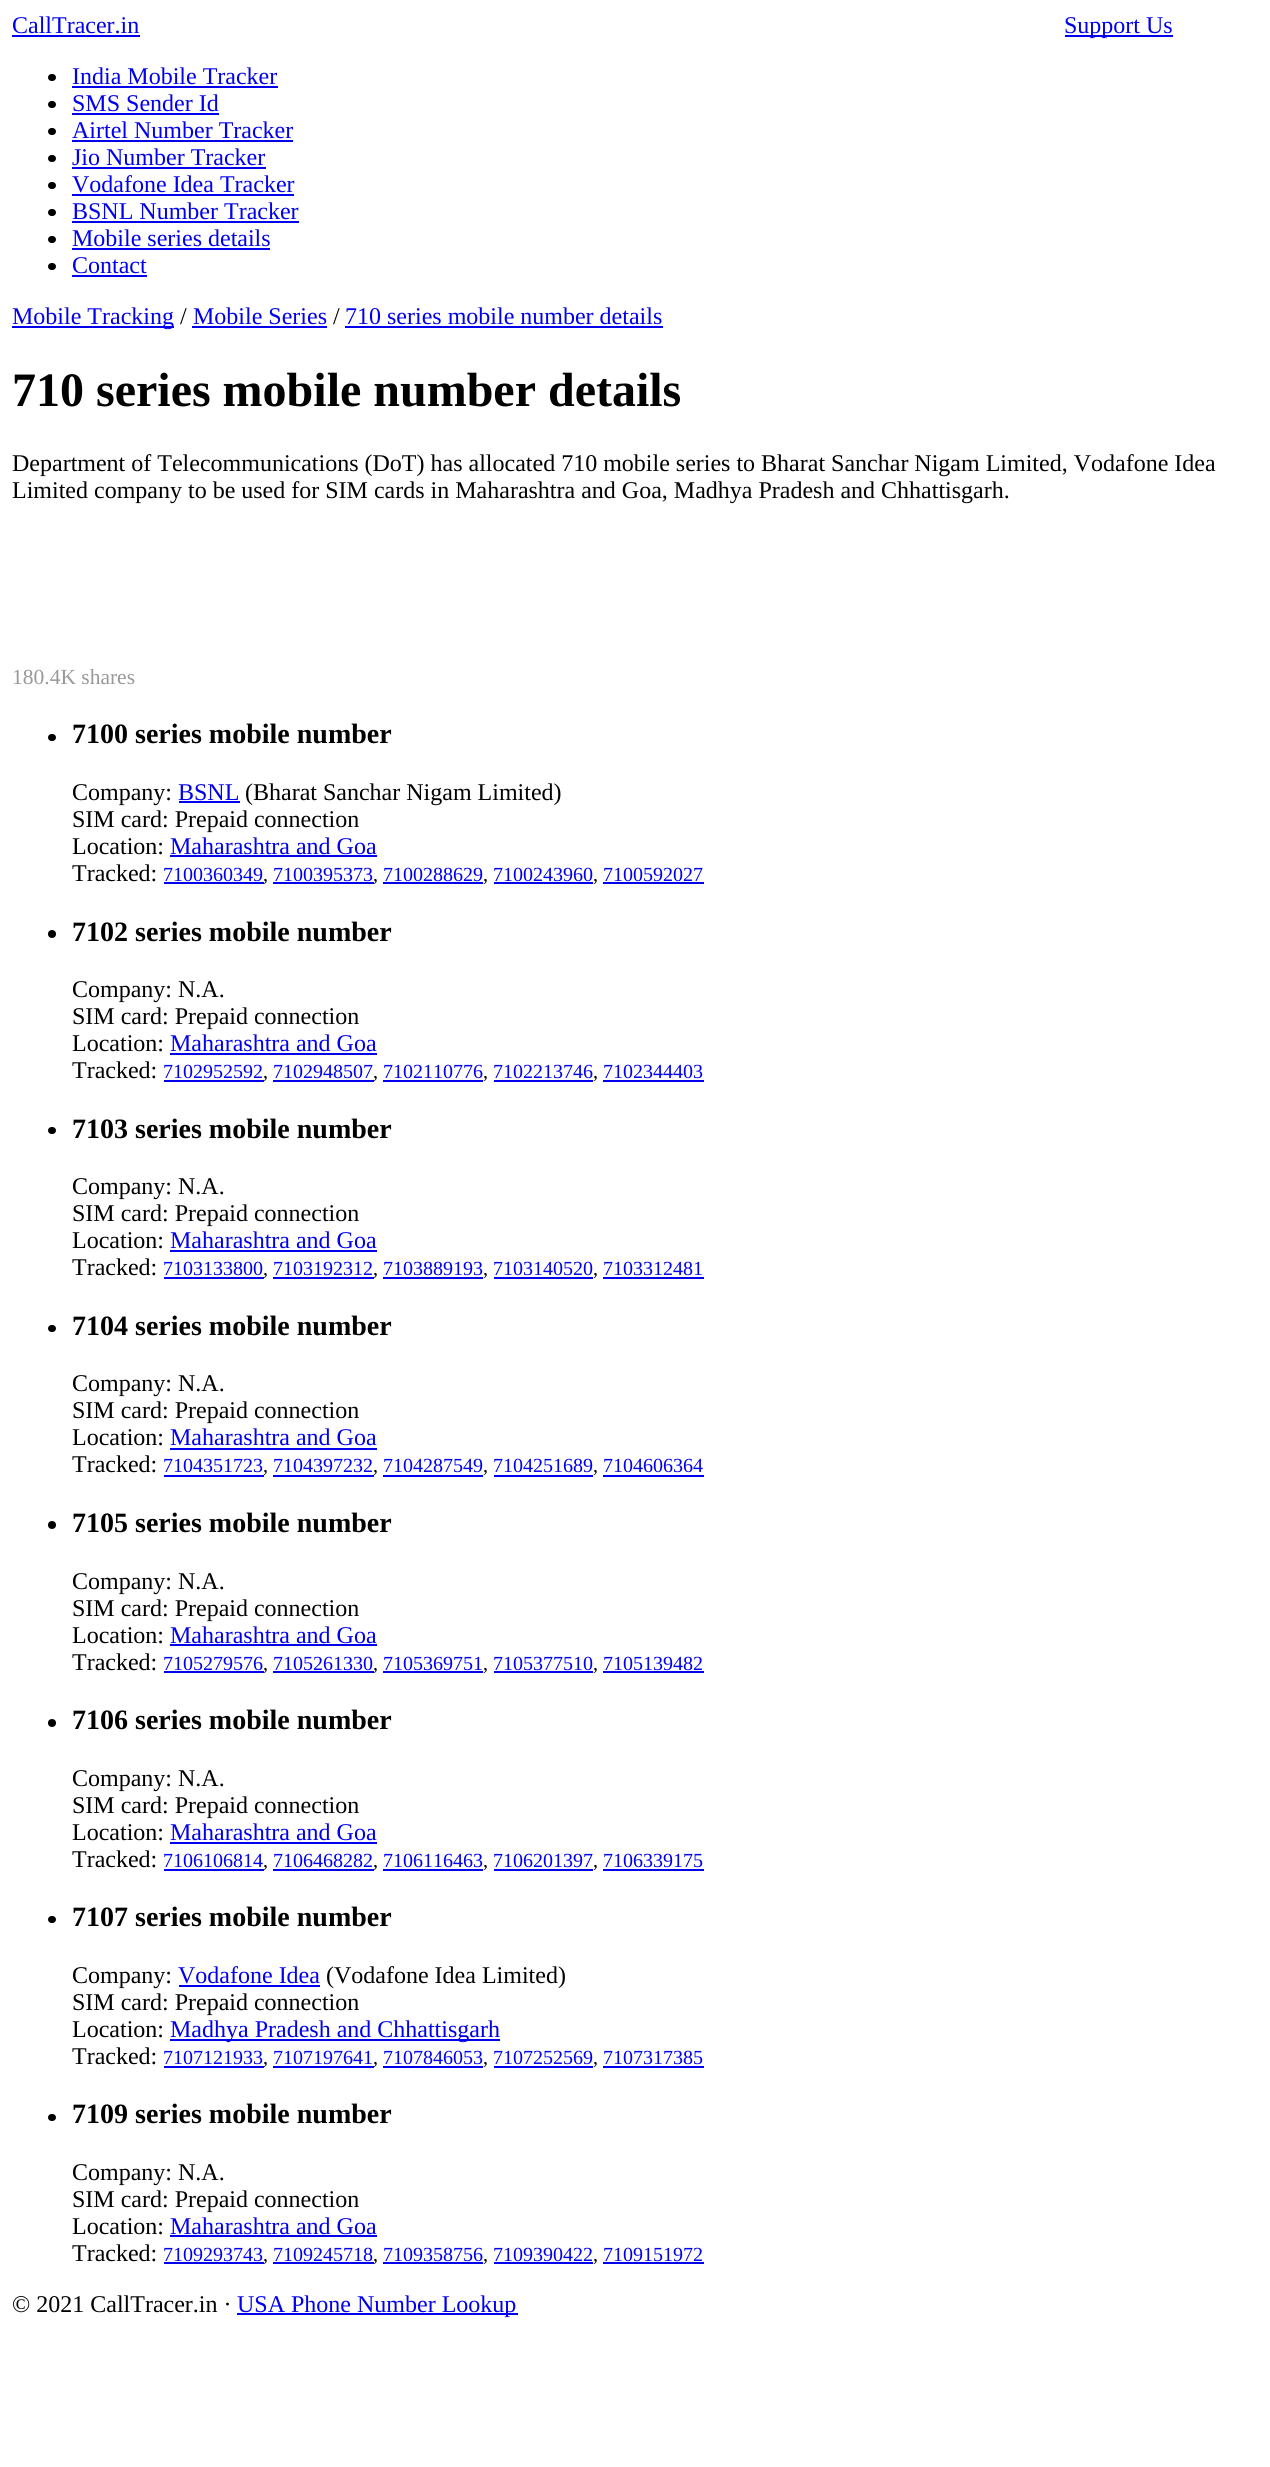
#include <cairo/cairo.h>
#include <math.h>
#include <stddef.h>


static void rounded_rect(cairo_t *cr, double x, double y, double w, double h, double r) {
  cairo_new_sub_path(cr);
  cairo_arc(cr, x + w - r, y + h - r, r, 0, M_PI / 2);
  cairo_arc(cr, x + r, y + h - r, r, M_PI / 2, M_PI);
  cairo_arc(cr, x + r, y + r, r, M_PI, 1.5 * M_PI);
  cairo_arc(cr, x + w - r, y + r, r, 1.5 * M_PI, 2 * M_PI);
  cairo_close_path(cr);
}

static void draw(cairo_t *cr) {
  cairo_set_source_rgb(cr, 1, 1, 1);
  cairo_paint(cr);
  cairo_set_source_rgb(cr, 0, 0, 238 / 255.0);
  cairo_rectangle(cr, 12, 35, 128, 2);
  cairo_fill(cr);
  cairo_rectangle(cr, 1065, 35, 108, 2);
  cairo_fill(cr);
  cairo_set_source_rgb(cr, 0, 0, 0);
  rounded_rect(cr, 48, 74, 8, 7, 3.5);
  cairo_fill(cr);
  cairo_set_source_rgb(cr, 0, 0, 238 / 255.0);
  cairo_rectangle(cr, 72, 86, 206, 2);
  cairo_fill(cr);
  cairo_set_source_rgb(cr, 0, 0, 0);
  rounded_rect(cr, 48, 101, 8, 7, 3.5);
  cairo_fill(cr);
  cairo_set_source_rgb(cr, 0, 0, 238 / 255.0);
  cairo_rectangle(cr, 72, 113, 147, 2);
  cairo_fill(cr);
  cairo_set_source_rgb(cr, 0, 0, 0);
  rounded_rect(cr, 48, 128, 8, 7, 3.5);
  cairo_fill(cr);
  cairo_set_source_rgb(cr, 0, 0, 238 / 255.0);
  cairo_rectangle(cr, 72, 140, 221, 2);
  cairo_fill(cr);
  cairo_set_source_rgb(cr, 0, 0, 0);
  rounded_rect(cr, 48, 155, 8, 7, 3.5);
  cairo_fill(cr);
  cairo_set_source_rgb(cr, 0, 0, 238 / 255.0);
  cairo_rectangle(cr, 72, 167, 194, 2);
  cairo_fill(cr);
  cairo_set_source_rgb(cr, 0, 0, 0);
  rounded_rect(cr, 48, 182, 8, 7, 3.5);
  cairo_fill(cr);
  cairo_set_source_rgb(cr, 0, 0, 238 / 255.0);
  cairo_rectangle(cr, 72, 194, 222, 2);
  cairo_fill(cr);
  cairo_set_source_rgb(cr, 0, 0, 0);
  rounded_rect(cr, 48, 209, 8, 7, 3.5);
  cairo_fill(cr);
  cairo_set_source_rgb(cr, 0, 0, 238 / 255.0);
  cairo_rectangle(cr, 72, 221, 227, 2);
  cairo_fill(cr);
  cairo_set_source_rgb(cr, 0, 0, 0);
  rounded_rect(cr, 48, 236, 8, 7, 3.5);
  cairo_fill(cr);
  cairo_set_source_rgb(cr, 0, 0, 238 / 255.0);
  cairo_rectangle(cr, 72, 248, 198, 2);
  cairo_fill(cr);
  cairo_set_source_rgb(cr, 0, 0, 0);
  rounded_rect(cr, 48, 263, 8, 7, 3.5);
  cairo_fill(cr);
  cairo_set_source_rgb(cr, 0, 0, 238 / 255.0);
  cairo_rectangle(cr, 72, 275, 75, 2);
  cairo_fill(cr);
  cairo_rectangle(cr, 12, 326, 162, 2);
  cairo_fill(cr);
  cairo_rectangle(cr, 192, 326, 135, 2);
  cairo_fill(cr);
  cairo_rectangle(cr, 345, 326, 318, 2);
  cairo_fill(cr);
  cairo_set_source_rgb(cr, 0, 0, 0);
  rounded_rect(cr, 48, 734, 8, 7, 3.5);
  cairo_fill(cr);
  cairo_set_source_rgb(cr, 0, 0, 238 / 255.0);
  cairo_rectangle(cr, 179, 801, 61, 2);
  cairo_fill(cr);
  cairo_rectangle(cr, 170, 855, 207, 2);
  cairo_fill(cr);
  cairo_rectangle(cr, 164, 882, 100, 2);
  cairo_fill(cr);
  cairo_rectangle(cr, 273, 882, 101, 2);
  cairo_fill(cr);
  cairo_rectangle(cr, 383, 882, 100, 2);
  cairo_fill(cr);
  cairo_rectangle(cr, 494, 882, 99, 2);
  cairo_fill(cr);
  cairo_rectangle(cr, 603, 882, 101, 2);
  cairo_fill(cr);
  cairo_set_source_rgb(cr, 0, 0, 0);
  cairo_arc(cr, 52, 934, 4, 0, 2 * M_PI);
  cairo_fill(cr);
  cairo_set_source_rgb(cr, 0, 0, 238 / 255.0);
  cairo_rectangle(cr, 170, 1053, 207, 2);
  cairo_fill(cr);
  cairo_rectangle(cr, 164, 1080, 100, 2);
  cairo_fill(cr);
  cairo_rectangle(cr, 273, 1080, 101, 2);
  cairo_fill(cr);
  cairo_rectangle(cr, 383, 1080, 100, 2);
  cairo_fill(cr);
  cairo_rectangle(cr, 494, 1080, 99, 2);
  cairo_fill(cr);
  cairo_rectangle(cr, 603, 1080, 101, 2);
  cairo_fill(cr);
  cairo_set_source_rgb(cr, 0, 0, 0);
  rounded_rect(cr, 48, 1127, 8, 7, 3.5);
  cairo_fill(cr);
  cairo_set_source_rgb(cr, 0, 0, 238 / 255.0);
  cairo_rectangle(cr, 170, 1250, 207, 2);
  cairo_fill(cr);
  cairo_rectangle(cr, 164, 1277, 100, 2);
  cairo_fill(cr);
  cairo_rectangle(cr, 273, 1277, 101, 2);
  cairo_fill(cr);
  cairo_rectangle(cr, 383, 1277, 100, 2);
  cairo_fill(cr);
  cairo_rectangle(cr, 494, 1277, 99, 2);
  cairo_fill(cr);
  cairo_rectangle(cr, 603, 1277, 101, 2);
  cairo_fill(cr);
  cairo_set_source_rgb(cr, 0, 0, 0);
  rounded_rect(cr, 48, 1325, 8, 7, 3.5);
  cairo_fill(cr);
  cairo_set_source_rgb(cr, 0, 0, 238 / 255.0);
  cairo_rectangle(cr, 170, 1448, 207, 2);
  cairo_fill(cr);
  cairo_rectangle(cr, 164, 1475, 100, 2);
  cairo_fill(cr);
  cairo_rectangle(cr, 273, 1475, 101, 2);
  cairo_fill(cr);
  cairo_rectangle(cr, 383, 1475, 100, 2);
  cairo_fill(cr);
  cairo_rectangle(cr, 494, 1475, 99, 2);
  cairo_fill(cr);
  cairo_rectangle(cr, 603, 1475, 101, 2);
  cairo_fill(cr);
  cairo_set_source_rgb(cr, 0, 0, 0);
  cairo_arc(cr, 52, 1525, 4, 0, 2 * M_PI);
  cairo_fill(cr);
  cairo_set_source_rgb(cr, 0, 0, 238 / 255.0);
  cairo_rectangle(cr, 170, 1644, 207, 2);
  cairo_fill(cr);
  cairo_rectangle(cr, 164, 1671, 100, 2);
  cairo_fill(cr);
  cairo_rectangle(cr, 273, 1671, 101, 2);
  cairo_fill(cr);
  cairo_rectangle(cr, 383, 1671, 100, 2);
  cairo_fill(cr);
  cairo_rectangle(cr, 494, 1671, 99, 2);
  cairo_fill(cr);
  cairo_rectangle(cr, 603, 1671, 101, 2);
  cairo_fill(cr);
  cairo_set_source_rgb(cr, 0, 0, 0);
  cairo_arc(cr, 52, 1723, 4, 0, 2 * M_PI);
  cairo_fill(cr);
  cairo_set_source_rgb(cr, 0, 0, 238 / 255.0);
  cairo_rectangle(cr, 170, 1842, 207, 2);
  cairo_fill(cr);
  cairo_rectangle(cr, 164, 1869, 100, 2);
  cairo_fill(cr);
  cairo_rectangle(cr, 273, 1869, 101, 2);
  cairo_fill(cr);
  cairo_rectangle(cr, 383, 1869, 100, 2);
  cairo_fill(cr);
  cairo_rectangle(cr, 494, 1869, 99, 2);
  cairo_fill(cr);
  cairo_rectangle(cr, 603, 1869, 101, 2);
  cairo_fill(cr);
  cairo_set_source_rgb(cr, 0, 0, 0);
  rounded_rect(cr, 48, 1916, 8, 7, 3.5);
  cairo_fill(cr);
  cairo_set_source_rgb(cr, 0, 0, 238 / 255.0);
  cairo_rectangle(cr, 179, 1985, 141, 2);
  cairo_fill(cr);
  cairo_rectangle(cr, 170, 2039, 330, 2);
  cairo_fill(cr);
  cairo_rectangle(cr, 164, 2066, 100, 2);
  cairo_fill(cr);
  cairo_rectangle(cr, 273, 2066, 101, 2);
  cairo_fill(cr);
  cairo_rectangle(cr, 383, 2066, 100, 2);
  cairo_fill(cr);
  cairo_rectangle(cr, 494, 2066, 99, 2);
  cairo_fill(cr);
  cairo_rectangle(cr, 603, 2066, 101, 2);
  cairo_fill(cr);
  cairo_set_source_rgb(cr, 0, 0, 0);
  rounded_rect(cr, 48, 2114, 8, 7, 3.5);
  cairo_fill(cr);
  cairo_set_source_rgb(cr, 0, 0, 238 / 255.0);
  cairo_rectangle(cr, 170, 2235, 207, 2);
  cairo_fill(cr);
  cairo_rectangle(cr, 164, 2262, 100, 2);
  cairo_fill(cr);
  cairo_rectangle(cr, 273, 2262, 101, 2);
  cairo_fill(cr);
  cairo_rectangle(cr, 383, 2262, 100, 2);
  cairo_fill(cr);
  cairo_rectangle(cr, 494, 2262, 99, 2);
  cairo_fill(cr);
  cairo_rectangle(cr, 603, 2262, 101, 2);
  cairo_fill(cr);
  cairo_rectangle(cr, 237, 2313, 281, 2);
  cairo_fill(cr);
  cairo_select_font_face(cr, "Liberation Serif", CAIRO_FONT_SLANT_NORMAL, CAIRO_FONT_WEIGHT_NORMAL);
  cairo_set_font_size(cr, 24);
  cairo_move_to(cr, 12, 33);
  cairo_show_text(cr, "CallTracer.in");
  cairo_move_to(cr, 1064, 33);
  cairo_show_text(cr, "Support Us");
  cairo_move_to(cr, 72, 84);
  cairo_show_text(cr, "India Mobile Tracker");
  cairo_move_to(cr, 72, 111);
  cairo_show_text(cr, "SMS Sender Id");
  cairo_move_to(cr, 72, 138);
  cairo_show_text(cr, "Airtel Number Tracker");
  cairo_move_to(cr, 72, 165);
  cairo_show_text(cr, "Jio Number Tracker");
  cairo_move_to(cr, 72, 192);
  cairo_show_text(cr, "Vodafone Idea Tracker");
  cairo_move_to(cr, 72, 219);
  cairo_show_text(cr, "BSNL Number Tracker");
  cairo_move_to(cr, 72, 246);
  cairo_show_text(cr, "Mobile series details");
  cairo_move_to(cr, 72, 273);
  cairo_show_text(cr, "Contact");
  cairo_move_to(cr, 12, 324);
  cairo_show_text(cr, "Mobile Tracking");
  cairo_set_source_rgb(cr, 0, 0, 0);
  cairo_move_to(cr, 180, 324);
  cairo_show_text(cr, "/");
  cairo_set_source_rgb(cr, 0, 0, 238 / 255.0);
  cairo_move_to(cr, 193, 324);
  cairo_show_text(cr, "Mobile Series");
  cairo_set_source_rgb(cr, 0, 0, 0);
  cairo_move_to(cr, 333, 324);
  cairo_show_text(cr, "/");
  cairo_set_source_rgb(cr, 0, 0, 238 / 255.0);
  cairo_move_to(cr, 345, 324);
  cairo_show_text(cr, "710 series mobile number details");
  cairo_select_font_face(cr, "Liberation Serif", CAIRO_FONT_SLANT_NORMAL, CAIRO_FONT_WEIGHT_BOLD);
  cairo_set_font_size(cr, 48);
  cairo_set_source_rgb(cr, 0, 0, 0);
  cairo_move_to(cr, 12, 406);
  cairo_show_text(cr, "710 series mobile number details");
  cairo_select_font_face(cr, "Liberation Serif", CAIRO_FONT_SLANT_NORMAL, CAIRO_FONT_WEIGHT_NORMAL);
  cairo_set_font_size(cr, 24);
  cairo_move_to(cr, 12, 471);
  cairo_show_text(cr, "Department of Telecommunications (DoT) has allocated 710 mobile series to Bharat Sanchar Nigam Limited, Vodafone Idea");
  cairo_move_to(cr, 12, 498);
  cairo_show_text(cr, "Limited company to be used for SIM cards in Maharashtra and Goa, Madhya Pradesh and Chhattisgarh.");
  cairo_set_font_size(cr, 21.5);
  cairo_set_source_rgb(cr, 153 / 255.0, 153 / 255.0, 153 / 255.0);
  cairo_move_to(cr, 12, 684);
  cairo_show_text(cr, "180.4K shares");
  cairo_select_font_face(cr, "Liberation Serif", CAIRO_FONT_SLANT_NORMAL, CAIRO_FONT_WEIGHT_BOLD);
  cairo_set_font_size(cr, 28);
  cairo_set_source_rgb(cr, 0, 0, 0);
  cairo_move_to(cr, 72, 743);
  cairo_show_text(cr, "7100 series mobile number");
  cairo_select_font_face(cr, "Liberation Serif", CAIRO_FONT_SLANT_NORMAL, CAIRO_FONT_WEIGHT_NORMAL);
  cairo_set_font_size(cr, 24);
  cairo_move_to(cr, 72, 800);
  cairo_show_text(cr, "Company:");
  cairo_set_source_rgb(cr, 0, 0, 238 / 255.0);
  cairo_move_to(cr, 178, 800);
  cairo_show_text(cr, "BSNL");
  cairo_set_source_rgb(cr, 0, 0, 0);
  cairo_move_to(cr, 245, 800);
  cairo_show_text(cr, "(Bharat Sanchar Nigam Limited)");
  cairo_move_to(cr, 72, 827);
  cairo_show_text(cr, "SIM card: Prepaid connection");
  cairo_move_to(cr, 72, 854);
  cairo_show_text(cr, "Location:");
  cairo_set_source_rgb(cr, 0, 0, 238 / 255.0);
  cairo_move_to(cr, 170, 854);
  cairo_show_text(cr, "Maharashtra and Goa");
  cairo_set_source_rgb(cr, 0, 0, 0);
  cairo_move_to(cr, 72, 881);
  cairo_show_text(cr, "Tracked:");
  cairo_set_font_size(cr, 20);
  cairo_set_source_rgb(cr, 0, 0, 238 / 255.0);
  cairo_move_to(cr, 163, 881);
  cairo_show_text(cr, "7100360349");
  cairo_set_source_rgb(cr, 0, 0, 0);
  cairo_move_to(cr, 263, 881);
  cairo_show_text(cr, ",");
  cairo_set_source_rgb(cr, 0, 0, 238 / 255.0);
  cairo_move_to(cr, 273, 881);
  cairo_show_text(cr, "7100395373");
  cairo_set_source_rgb(cr, 0, 0, 0);
  cairo_move_to(cr, 373, 881);
  cairo_show_text(cr, ",");
  cairo_set_source_rgb(cr, 0, 0, 238 / 255.0);
  cairo_move_to(cr, 383, 881);
  cairo_show_text(cr, "7100288629");
  cairo_set_source_rgb(cr, 0, 0, 0);
  cairo_move_to(cr, 483, 881);
  cairo_show_text(cr, ",");
  cairo_set_source_rgb(cr, 0, 0, 238 / 255.0);
  cairo_move_to(cr, 493, 881);
  cairo_show_text(cr, "7100243960");
  cairo_set_source_rgb(cr, 0, 0, 0);
  cairo_move_to(cr, 593, 881);
  cairo_show_text(cr, ",");
  cairo_set_source_rgb(cr, 0, 0, 238 / 255.0);
  cairo_move_to(cr, 603, 881);
  cairo_show_text(cr, "7100592027");
  cairo_select_font_face(cr, "Liberation Serif", CAIRO_FONT_SLANT_NORMAL, CAIRO_FONT_WEIGHT_BOLD);
  cairo_set_font_size(cr, 28);
  cairo_set_source_rgb(cr, 0, 0, 0);
  cairo_move_to(cr, 72, 941);
  cairo_show_text(cr, "7102 series mobile number");
  cairo_select_font_face(cr, "Liberation Serif", CAIRO_FONT_SLANT_NORMAL, CAIRO_FONT_WEIGHT_NORMAL);
  cairo_set_font_size(cr, 24);
  cairo_move_to(cr, 72, 997);
  cairo_show_text(cr, "Company: N.A.");
  cairo_move_to(cr, 72, 1024);
  cairo_show_text(cr, "SIM card: Prepaid connection");
  cairo_move_to(cr, 72, 1051);
  cairo_show_text(cr, "Location:");
  cairo_set_source_rgb(cr, 0, 0, 238 / 255.0);
  cairo_move_to(cr, 170, 1051);
  cairo_show_text(cr, "Maharashtra and Goa");
  cairo_set_source_rgb(cr, 0, 0, 0);
  cairo_move_to(cr, 72, 1078);
  cairo_show_text(cr, "Tracked:");
  cairo_set_font_size(cr, 20);
  cairo_set_source_rgb(cr, 0, 0, 238 / 255.0);
  cairo_move_to(cr, 163, 1078);
  cairo_show_text(cr, "7102952592");
  cairo_set_source_rgb(cr, 0, 0, 0);
  cairo_move_to(cr, 263, 1078);
  cairo_show_text(cr, ",");
  cairo_set_source_rgb(cr, 0, 0, 238 / 255.0);
  cairo_move_to(cr, 273, 1078);
  cairo_show_text(cr, "7102948507");
  cairo_set_source_rgb(cr, 0, 0, 0);
  cairo_move_to(cr, 373, 1078);
  cairo_show_text(cr, ",");
  cairo_set_source_rgb(cr, 0, 0, 238 / 255.0);
  cairo_move_to(cr, 383, 1078);
  cairo_show_text(cr, "7102110776");
  cairo_set_source_rgb(cr, 0, 0, 0);
  cairo_move_to(cr, 483, 1078);
  cairo_show_text(cr, ",");
  cairo_set_source_rgb(cr, 0, 0, 238 / 255.0);
  cairo_move_to(cr, 493, 1078);
  cairo_show_text(cr, "7102213746");
  cairo_set_source_rgb(cr, 0, 0, 0);
  cairo_move_to(cr, 593, 1078);
  cairo_show_text(cr, ",");
  cairo_set_source_rgb(cr, 0, 0, 238 / 255.0);
  cairo_move_to(cr, 603, 1078);
  cairo_show_text(cr, "7102344403");
  cairo_select_font_face(cr, "Liberation Serif", CAIRO_FONT_SLANT_NORMAL, CAIRO_FONT_WEIGHT_BOLD);
  cairo_set_font_size(cr, 28);
  cairo_set_source_rgb(cr, 0, 0, 0);
  cairo_move_to(cr, 72, 1138);
  cairo_show_text(cr, "7103 series mobile number");
  cairo_select_font_face(cr, "Liberation Serif", CAIRO_FONT_SLANT_NORMAL, CAIRO_FONT_WEIGHT_NORMAL);
  cairo_set_font_size(cr, 24);
  cairo_move_to(cr, 72, 1194);
  cairo_show_text(cr, "Company: N.A.");
  cairo_move_to(cr, 72, 1221);
  cairo_show_text(cr, "SIM card: Prepaid connection");
  cairo_move_to(cr, 72, 1248);
  cairo_show_text(cr, "Location:");
  cairo_set_source_rgb(cr, 0, 0, 238 / 255.0);
  cairo_move_to(cr, 170, 1248);
  cairo_show_text(cr, "Maharashtra and Goa");
  cairo_set_source_rgb(cr, 0, 0, 0);
  cairo_move_to(cr, 72, 1275);
  cairo_show_text(cr, "Tracked:");
  cairo_set_font_size(cr, 20);
  cairo_set_source_rgb(cr, 0, 0, 238 / 255.0);
  cairo_move_to(cr, 163, 1275);
  cairo_show_text(cr, "7103133800");
  cairo_set_source_rgb(cr, 0, 0, 0);
  cairo_move_to(cr, 263, 1275);
  cairo_show_text(cr, ",");
  cairo_set_source_rgb(cr, 0, 0, 238 / 255.0);
  cairo_move_to(cr, 273, 1275);
  cairo_show_text(cr, "7103192312");
  cairo_set_source_rgb(cr, 0, 0, 0);
  cairo_move_to(cr, 373, 1275);
  cairo_show_text(cr, ",");
  cairo_set_source_rgb(cr, 0, 0, 238 / 255.0);
  cairo_move_to(cr, 383, 1275);
  cairo_show_text(cr, "7103889193");
  cairo_set_source_rgb(cr, 0, 0, 0);
  cairo_move_to(cr, 483, 1275);
  cairo_show_text(cr, ",");
  cairo_set_source_rgb(cr, 0, 0, 238 / 255.0);
  cairo_move_to(cr, 493, 1275);
  cairo_show_text(cr, "7103140520");
  cairo_set_source_rgb(cr, 0, 0, 0);
  cairo_move_to(cr, 593, 1275);
  cairo_show_text(cr, ",");
  cairo_set_source_rgb(cr, 0, 0, 238 / 255.0);
  cairo_move_to(cr, 603, 1275);
  cairo_show_text(cr, "7103312481");
  cairo_select_font_face(cr, "Liberation Serif", CAIRO_FONT_SLANT_NORMAL, CAIRO_FONT_WEIGHT_BOLD);
  cairo_set_font_size(cr, 28);
  cairo_set_source_rgb(cr, 0, 0, 0);
  cairo_move_to(cr, 72, 1335);
  cairo_show_text(cr, "7104 series mobile number");
  cairo_select_font_face(cr, "Liberation Serif", CAIRO_FONT_SLANT_NORMAL, CAIRO_FONT_WEIGHT_NORMAL);
  cairo_set_font_size(cr, 24);
  cairo_move_to(cr, 72, 1391);
  cairo_show_text(cr, "Company: N.A.");
  cairo_move_to(cr, 72, 1418);
  cairo_show_text(cr, "SIM card: Prepaid connection");
  cairo_move_to(cr, 72, 1445);
  cairo_show_text(cr, "Location:");
  cairo_set_source_rgb(cr, 0, 0, 238 / 255.0);
  cairo_move_to(cr, 170, 1445);
  cairo_show_text(cr, "Maharashtra and Goa");
  cairo_set_source_rgb(cr, 0, 0, 0);
  cairo_move_to(cr, 72, 1472);
  cairo_show_text(cr, "Tracked:");
  cairo_set_font_size(cr, 20);
  cairo_set_source_rgb(cr, 0, 0, 238 / 255.0);
  cairo_move_to(cr, 163, 1472);
  cairo_show_text(cr, "7104351723");
  cairo_set_source_rgb(cr, 0, 0, 0);
  cairo_move_to(cr, 263, 1472);
  cairo_show_text(cr, ",");
  cairo_set_source_rgb(cr, 0, 0, 238 / 255.0);
  cairo_move_to(cr, 273, 1472);
  cairo_show_text(cr, "7104397232");
  cairo_set_source_rgb(cr, 0, 0, 0);
  cairo_move_to(cr, 373, 1472);
  cairo_show_text(cr, ",");
  cairo_set_source_rgb(cr, 0, 0, 238 / 255.0);
  cairo_move_to(cr, 383, 1472);
  cairo_show_text(cr, "7104287549");
  cairo_set_source_rgb(cr, 0, 0, 0);
  cairo_move_to(cr, 483, 1472);
  cairo_show_text(cr, ",");
  cairo_set_source_rgb(cr, 0, 0, 238 / 255.0);
  cairo_move_to(cr, 493, 1472);
  cairo_show_text(cr, "7104251689");
  cairo_set_source_rgb(cr, 0, 0, 0);
  cairo_move_to(cr, 593, 1472);
  cairo_show_text(cr, ",");
  cairo_set_source_rgb(cr, 0, 0, 238 / 255.0);
  cairo_move_to(cr, 603, 1472);
  cairo_show_text(cr, "7104606364");
  cairo_select_font_face(cr, "Liberation Serif", CAIRO_FONT_SLANT_NORMAL, CAIRO_FONT_WEIGHT_BOLD);
  cairo_set_font_size(cr, 28);
  cairo_set_source_rgb(cr, 0, 0, 0);
  cairo_move_to(cr, 72, 1532);
  cairo_show_text(cr, "7105 series mobile number");
  cairo_select_font_face(cr, "Liberation Serif", CAIRO_FONT_SLANT_NORMAL, CAIRO_FONT_WEIGHT_NORMAL);
  cairo_set_font_size(cr, 24);
  cairo_move_to(cr, 72, 1589);
  cairo_show_text(cr, "Company: N.A.");
  cairo_move_to(cr, 72, 1616);
  cairo_show_text(cr, "SIM card: Prepaid connection");
  cairo_move_to(cr, 72, 1643);
  cairo_show_text(cr, "Location:");
  cairo_set_source_rgb(cr, 0, 0, 238 / 255.0);
  cairo_move_to(cr, 170, 1643);
  cairo_show_text(cr, "Maharashtra and Goa");
  cairo_set_source_rgb(cr, 0, 0, 0);
  cairo_move_to(cr, 72, 1670);
  cairo_show_text(cr, "Tracked:");
  cairo_set_font_size(cr, 20);
  cairo_set_source_rgb(cr, 0, 0, 238 / 255.0);
  cairo_move_to(cr, 163, 1670);
  cairo_show_text(cr, "7105279576");
  cairo_set_source_rgb(cr, 0, 0, 0);
  cairo_move_to(cr, 263, 1670);
  cairo_show_text(cr, ",");
  cairo_set_source_rgb(cr, 0, 0, 238 / 255.0);
  cairo_move_to(cr, 273, 1670);
  cairo_show_text(cr, "7105261330");
  cairo_set_source_rgb(cr, 0, 0, 0);
  cairo_move_to(cr, 373, 1670);
  cairo_show_text(cr, ",");
  cairo_set_source_rgb(cr, 0, 0, 238 / 255.0);
  cairo_move_to(cr, 383, 1670);
  cairo_show_text(cr, "7105369751");
  cairo_set_source_rgb(cr, 0, 0, 0);
  cairo_move_to(cr, 483, 1670);
  cairo_show_text(cr, ",");
  cairo_set_source_rgb(cr, 0, 0, 238 / 255.0);
  cairo_move_to(cr, 493, 1670);
  cairo_show_text(cr, "7105377510");
  cairo_set_source_rgb(cr, 0, 0, 0);
  cairo_move_to(cr, 593, 1670);
  cairo_show_text(cr, ",");
  cairo_set_source_rgb(cr, 0, 0, 238 / 255.0);
  cairo_move_to(cr, 603, 1670);
  cairo_show_text(cr, "7105139482");
  cairo_select_font_face(cr, "Liberation Serif", CAIRO_FONT_SLANT_NORMAL, CAIRO_FONT_WEIGHT_BOLD);
  cairo_set_font_size(cr, 28);
  cairo_set_source_rgb(cr, 0, 0, 0);
  cairo_move_to(cr, 72, 1729);
  cairo_show_text(cr, "7106 series mobile number");
  cairo_select_font_face(cr, "Liberation Serif", CAIRO_FONT_SLANT_NORMAL, CAIRO_FONT_WEIGHT_NORMAL);
  cairo_set_font_size(cr, 24);
  cairo_move_to(cr, 72, 1786);
  cairo_show_text(cr, "Company: N.A.");
  cairo_move_to(cr, 72, 1813);
  cairo_show_text(cr, "SIM card: Prepaid connection");
  cairo_move_to(cr, 72, 1840);
  cairo_show_text(cr, "Location:");
  cairo_set_source_rgb(cr, 0, 0, 238 / 255.0);
  cairo_move_to(cr, 170, 1840);
  cairo_show_text(cr, "Maharashtra and Goa");
  cairo_set_source_rgb(cr, 0, 0, 0);
  cairo_move_to(cr, 72, 1867);
  cairo_show_text(cr, "Tracked:");
  cairo_set_font_size(cr, 20);
  cairo_set_source_rgb(cr, 0, 0, 238 / 255.0);
  cairo_move_to(cr, 163, 1867);
  cairo_show_text(cr, "7106106814");
  cairo_set_source_rgb(cr, 0, 0, 0);
  cairo_move_to(cr, 263, 1867);
  cairo_show_text(cr, ",");
  cairo_set_source_rgb(cr, 0, 0, 238 / 255.0);
  cairo_move_to(cr, 273, 1867);
  cairo_show_text(cr, "7106468282");
  cairo_set_source_rgb(cr, 0, 0, 0);
  cairo_move_to(cr, 373, 1867);
  cairo_show_text(cr, ",");
  cairo_set_source_rgb(cr, 0, 0, 238 / 255.0);
  cairo_move_to(cr, 383, 1867);
  cairo_show_text(cr, "7106116463");
  cairo_set_source_rgb(cr, 0, 0, 0);
  cairo_move_to(cr, 483, 1867);
  cairo_show_text(cr, ",");
  cairo_set_source_rgb(cr, 0, 0, 238 / 255.0);
  cairo_move_to(cr, 493, 1867);
  cairo_show_text(cr, "7106201397");
  cairo_set_source_rgb(cr, 0, 0, 0);
  cairo_move_to(cr, 593, 1867);
  cairo_show_text(cr, ",");
  cairo_set_source_rgb(cr, 0, 0, 238 / 255.0);
  cairo_move_to(cr, 603, 1867);
  cairo_show_text(cr, "7106339175");
  cairo_select_font_face(cr, "Liberation Serif", CAIRO_FONT_SLANT_NORMAL, CAIRO_FONT_WEIGHT_BOLD);
  cairo_set_font_size(cr, 28);
  cairo_set_source_rgb(cr, 0, 0, 0);
  cairo_move_to(cr, 72, 1926);
  cairo_show_text(cr, "7107 series mobile number");
  cairo_select_font_face(cr, "Liberation Serif", CAIRO_FONT_SLANT_NORMAL, CAIRO_FONT_WEIGHT_NORMAL);
  cairo_set_font_size(cr, 24);
  cairo_move_to(cr, 72, 1983);
  cairo_show_text(cr, "Company:");
  cairo_set_source_rgb(cr, 0, 0, 238 / 255.0);
  cairo_move_to(cr, 178, 1983);
  cairo_show_text(cr, "Vodafone Idea");
  cairo_set_source_rgb(cr, 0, 0, 0);
  cairo_move_to(cr, 326, 1983);
  cairo_show_text(cr, "(Vodafone Idea Limited)");
  cairo_move_to(cr, 72, 2010);
  cairo_show_text(cr, "SIM card: Prepaid connection");
  cairo_move_to(cr, 72, 2037);
  cairo_show_text(cr, "Location:");
  cairo_set_source_rgb(cr, 0, 0, 238 / 255.0);
  cairo_move_to(cr, 170, 2037);
  cairo_show_text(cr, "Madhya Pradesh and Chhattisgarh");
  cairo_set_source_rgb(cr, 0, 0, 0);
  cairo_move_to(cr, 72, 2064);
  cairo_show_text(cr, "Tracked:");
  cairo_set_font_size(cr, 20);
  cairo_set_source_rgb(cr, 0, 0, 238 / 255.0);
  cairo_move_to(cr, 163, 2064);
  cairo_show_text(cr, "7107121933");
  cairo_set_source_rgb(cr, 0, 0, 0);
  cairo_move_to(cr, 263, 2064);
  cairo_show_text(cr, ",");
  cairo_set_source_rgb(cr, 0, 0, 238 / 255.0);
  cairo_move_to(cr, 273, 2064);
  cairo_show_text(cr, "7107197641");
  cairo_set_source_rgb(cr, 0, 0, 0);
  cairo_move_to(cr, 373, 2064);
  cairo_show_text(cr, ",");
  cairo_set_source_rgb(cr, 0, 0, 238 / 255.0);
  cairo_move_to(cr, 383, 2064);
  cairo_show_text(cr, "7107846053");
  cairo_set_source_rgb(cr, 0, 0, 0);
  cairo_move_to(cr, 483, 2064);
  cairo_show_text(cr, ",");
  cairo_set_source_rgb(cr, 0, 0, 238 / 255.0);
  cairo_move_to(cr, 493, 2064);
  cairo_show_text(cr, "7107252569");
  cairo_set_source_rgb(cr, 0, 0, 0);
  cairo_move_to(cr, 593, 2064);
  cairo_show_text(cr, ",");
  cairo_set_source_rgb(cr, 0, 0, 238 / 255.0);
  cairo_move_to(cr, 603, 2064);
  cairo_show_text(cr, "7107317385");
  cairo_select_font_face(cr, "Liberation Serif", CAIRO_FONT_SLANT_NORMAL, CAIRO_FONT_WEIGHT_BOLD);
  cairo_set_font_size(cr, 28);
  cairo_set_source_rgb(cr, 0, 0, 0);
  cairo_move_to(cr, 72, 2123);
  cairo_show_text(cr, "7109 series mobile number");
  cairo_select_font_face(cr, "Liberation Serif", CAIRO_FONT_SLANT_NORMAL, CAIRO_FONT_WEIGHT_NORMAL);
  cairo_set_font_size(cr, 24);
  cairo_move_to(cr, 72, 2180);
  cairo_show_text(cr, "Company: N.A.");
  cairo_move_to(cr, 72, 2207);
  cairo_show_text(cr, "SIM card: Prepaid connection");
  cairo_move_to(cr, 72, 2234);
  cairo_show_text(cr, "Location:");
  cairo_set_source_rgb(cr, 0, 0, 238 / 255.0);
  cairo_move_to(cr, 170, 2234);
  cairo_show_text(cr, "Maharashtra and Goa");
  cairo_set_source_rgb(cr, 0, 0, 0);
  cairo_move_to(cr, 72, 2261);
  cairo_show_text(cr, "Tracked:");
  cairo_set_font_size(cr, 20);
  cairo_set_source_rgb(cr, 0, 0, 238 / 255.0);
  cairo_move_to(cr, 163, 2261);
  cairo_show_text(cr, "7109293743");
  cairo_set_source_rgb(cr, 0, 0, 0);
  cairo_move_to(cr, 263, 2261);
  cairo_show_text(cr, ",");
  cairo_set_source_rgb(cr, 0, 0, 238 / 255.0);
  cairo_move_to(cr, 273, 2261);
  cairo_show_text(cr, "7109245718");
  cairo_set_source_rgb(cr, 0, 0, 0);
  cairo_move_to(cr, 373, 2261);
  cairo_show_text(cr, ",");
  cairo_set_source_rgb(cr, 0, 0, 238 / 255.0);
  cairo_move_to(cr, 383, 2261);
  cairo_show_text(cr, "7109358756");
  cairo_set_source_rgb(cr, 0, 0, 0);
  cairo_move_to(cr, 483, 2261);
  cairo_show_text(cr, ",");
  cairo_set_source_rgb(cr, 0, 0, 238 / 255.0);
  cairo_move_to(cr, 493, 2261);
  cairo_show_text(cr, "7109390422");
  cairo_set_source_rgb(cr, 0, 0, 0);
  cairo_move_to(cr, 593, 2261);
  cairo_show_text(cr, ",");
  cairo_set_source_rgb(cr, 0, 0, 238 / 255.0);
  cairo_move_to(cr, 603, 2261);
  cairo_show_text(cr, "7109151972");
  cairo_set_font_size(cr, 24);
  cairo_set_source_rgb(cr, 0, 0, 0);
  cairo_move_to(cr, 12, 2312);
  cairo_show_text(cr, "© 2021 CallTracer.in ·");
  cairo_set_source_rgb(cr, 0, 0, 238 / 255.0);
  cairo_move_to(cr, 237, 2312);
  cairo_show_text(cr, "USA Phone Number Lookup");
}

int main(void) {
  cairo_surface_t *surface = cairo_image_surface_create(CAIRO_FORMAT_RGB24, 1270, 2467);
  cairo_t *cr = cairo_create(surface);
  cairo_font_options_t *options = cairo_font_options_create();
  cairo_font_options_set_hint_metrics(options, CAIRO_HINT_METRICS_OFF);
  cairo_font_options_set_hint_style(options, CAIRO_HINT_STYLE_NONE);
  cairo_set_font_options(cr, options);
  cairo_set_miter_limit(cr, 4);
  draw(cr);
  cairo_surface_write_to_png(surface, "out.png");
  cairo_font_options_destroy(options);
  cairo_destroy(cr);
  cairo_surface_destroy(surface);
  return 0;
}
